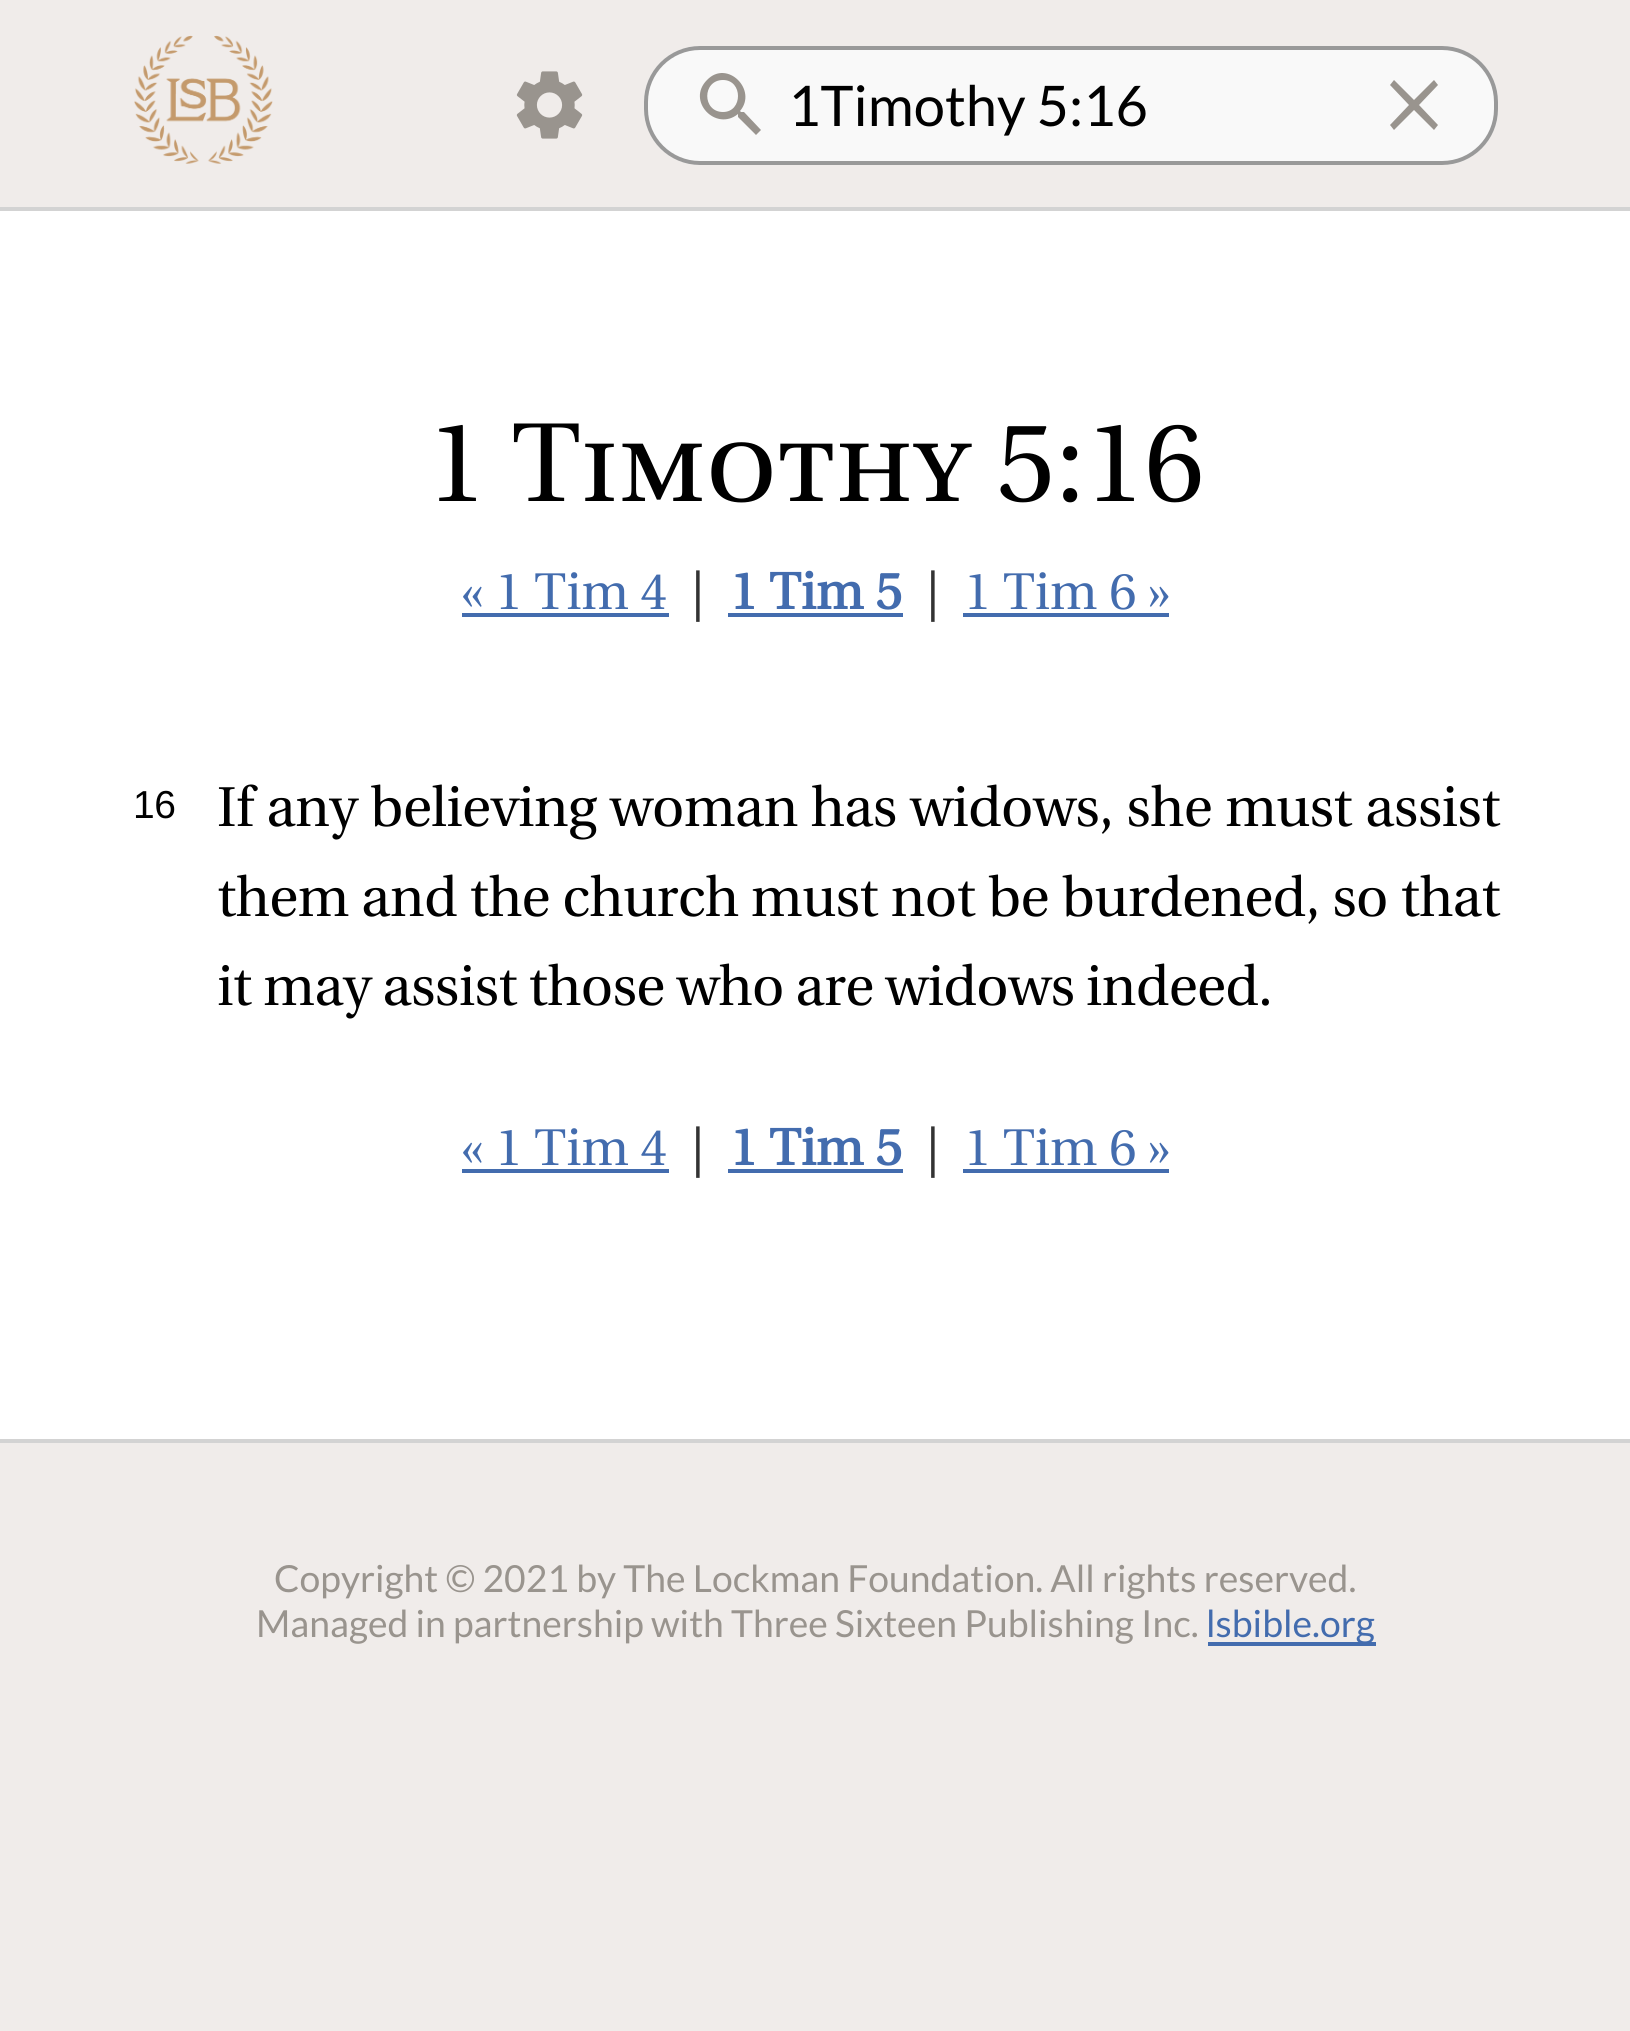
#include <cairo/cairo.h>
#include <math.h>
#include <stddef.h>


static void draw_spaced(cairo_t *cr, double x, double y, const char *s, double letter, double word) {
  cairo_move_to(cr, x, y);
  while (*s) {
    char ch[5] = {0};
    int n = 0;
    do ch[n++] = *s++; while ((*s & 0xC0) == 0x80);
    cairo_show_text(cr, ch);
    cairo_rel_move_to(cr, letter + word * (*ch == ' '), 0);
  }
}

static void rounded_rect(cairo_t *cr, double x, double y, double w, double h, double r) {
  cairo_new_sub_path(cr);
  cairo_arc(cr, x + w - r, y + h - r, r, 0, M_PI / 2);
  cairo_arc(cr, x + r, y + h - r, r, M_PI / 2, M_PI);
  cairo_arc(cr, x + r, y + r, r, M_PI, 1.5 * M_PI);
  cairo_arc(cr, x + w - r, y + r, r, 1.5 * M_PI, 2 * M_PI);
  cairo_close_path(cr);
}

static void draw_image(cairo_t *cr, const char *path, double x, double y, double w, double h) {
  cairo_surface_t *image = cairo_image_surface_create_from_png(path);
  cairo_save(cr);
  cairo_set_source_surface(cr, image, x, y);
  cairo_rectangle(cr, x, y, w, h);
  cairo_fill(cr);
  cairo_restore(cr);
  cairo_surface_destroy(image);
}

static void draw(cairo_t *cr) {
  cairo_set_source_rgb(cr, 240 / 255.0, 236 / 255.0, 234 / 255.0);
  cairo_paint(cr);
  draw_image(cr, "images/1.png", 134, 35, 139, 129);
  draw_image(cr, "images/2.png", 516, 71, 67, 68);
  cairo_set_source_rgb(cr, 249 / 255.0, 249 / 255.0, 249 / 255.0);
  rounded_rect(cr, 644, 46, 854, 119, 56);
  cairo_fill(cr);
  cairo_set_source_rgb(cr, 153 / 255.0, 148 / 255.0, 142 / 255.0);
  cairo_new_path(cr);
  cairo_move_to(cr, 744, 112);
  cairo_line_to(cr, 741, 112);
  cairo_line_to(cr, 740, 111);
  cairo_curve_to(cr, 758, 90, 727, 59, 707, 80);
  cairo_curve_to(cr, 686, 101, 716, 132, 738, 114);
  cairo_line_to(cr, 738, 117);
  cairo_line_to(cr, 756, 135);
  cairo_line_to(cr, 761, 130);
  cairo_close_path(cr);
  cairo_move_to(cr, 723, 112);
  cairo_curve_to(cr, 702, 112, 702, 80, 723, 80);
  cairo_curve_to(cr, 743, 80, 743, 112, 723, 112);
  cairo_close_path(cr);
  cairo_fill(cr);
  rounded_rect(cr, 646, 48, 850, 115, 54);
  cairo_set_source_rgb(cr, 153 / 255.0, 153 / 255.0, 153 / 255.0);
  cairo_set_line_width(cr, 4);
  cairo_stroke(cr);
  cairo_set_source_rgb(cr, 153 / 255.0, 148 / 255.0, 142 / 255.0);
  cairo_new_path(cr);
  cairo_move_to(cr, 1438, 85);
  cairo_line_to(cr, 1434, 80);
  cairo_line_to(cr, 1414, 100);
  cairo_line_to(cr, 1394, 80);
  cairo_line_to(cr, 1390, 85);
  cairo_line_to(cr, 1409, 105);
  cairo_line_to(cr, 1390, 125);
  cairo_line_to(cr, 1394, 130);
  cairo_line_to(cr, 1414, 110);
  cairo_line_to(cr, 1434, 130);
  cairo_line_to(cr, 1438, 125);
  cairo_line_to(cr, 1419, 105);
  cairo_close_path(cr);
  cairo_fill(cr);
  cairo_set_source_rgb(cr, 1, 1, 1);
  cairo_rectangle(cr, 0, 211, 1630, 1228);
  cairo_fill(cr);
  cairo_set_source_rgb(cr, 211 / 255.0, 211 / 255.0, 211 / 255.0);
  cairo_rectangle(cr, 0, 207, 1630, 4);
  cairo_fill(cr);
  cairo_rectangle(cr, 0, 1439, 1630, 4);
  cairo_fill(cr);
  cairo_set_source_rgb(cr, 67 / 255.0, 108 / 255.0, 174 / 255.0);
  cairo_rectangle(cr, 462, 613, 207, 4);
  cairo_fill(cr);
  cairo_rectangle(cr, 728, 613, 175, 4);
  cairo_fill(cr);
  cairo_rectangle(cr, 963, 613, 206, 4);
  cairo_fill(cr);
  cairo_rectangle(cr, 462, 1169, 207, 4);
  cairo_fill(cr);
  cairo_rectangle(cr, 728, 1169, 175, 4);
  cairo_fill(cr);
  cairo_rectangle(cr, 963, 1169, 206, 4);
  cairo_fill(cr);
  cairo_rectangle(cr, 1208, 1642, 168, 4);
  cairo_fill(cr);
  cairo_select_font_face(cr, "Lato", CAIRO_FONT_SLANT_NORMAL, CAIRO_FONT_WEIGHT_NORMAL);
  cairo_set_font_size(cr, 56);
  cairo_set_source_rgb(cr, 0, 0, 0);
  cairo_move_to(cr, 788, 126);
  cairo_show_text(cr, "1Timothy 5:16");
  cairo_select_font_face(cr, "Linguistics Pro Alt", CAIRO_FONT_SLANT_NORMAL, CAIRO_FONT_WEIGHT_NORMAL);
  cairo_set_font_size(cr, 112);
  cairo_move_to(cr, 427, 501);
  cairo_show_text(cr, "1 Timothy 5:16");
  cairo_select_font_face(cr, "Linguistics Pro", CAIRO_FONT_SLANT_NORMAL, CAIRO_FONT_WEIGHT_NORMAL);
  cairo_set_font_size(cr, 51.5);
  cairo_set_source_rgb(cr, 67 / 255.0, 108 / 255.0, 174 / 255.0);
  cairo_move_to(cr, 461, 609);
  cairo_show_text(cr, "« 1 Tim 4");
  cairo_set_source_rgb(cr, 51 / 255.0, 51 / 255.0, 51 / 255.0);
  cairo_move_to(cr, 692, 609);
  cairo_show_text(cr, "|");
  cairo_select_font_face(cr, "Linguistics Pro", CAIRO_FONT_SLANT_NORMAL, CAIRO_FONT_WEIGHT_BOLD);
  cairo_set_source_rgb(cr, 67 / 255.0, 108 / 255.0, 174 / 255.0);
  cairo_move_to(cr, 730, 609);
  cairo_show_text(cr, "1 Tim 5");
  cairo_select_font_face(cr, "Linguistics Pro", CAIRO_FONT_SLANT_NORMAL, CAIRO_FONT_WEIGHT_NORMAL);
  cairo_set_source_rgb(cr, 51 / 255.0, 51 / 255.0, 51 / 255.0);
  cairo_move_to(cr, 927, 609);
  cairo_show_text(cr, "|");
  cairo_set_source_rgb(cr, 67 / 255.0, 108 / 255.0, 174 / 255.0);
  cairo_move_to(cr, 964, 609);
  cairo_show_text(cr, "1 Tim 6 »");
  cairo_select_font_face(cr, "Liberation Sans", CAIRO_FONT_SLANT_NORMAL, CAIRO_FONT_WEIGHT_NORMAL);
  cairo_set_font_size(cr, 39);
  cairo_set_source_rgb(cr, 0, 0, 0);
  draw_spaced(cr, 133, 818, "16", -0.55, 0);
  cairo_select_font_face(cr, "Linguistics Pro", CAIRO_FONT_SLANT_NORMAL, CAIRO_FONT_WEIGHT_NORMAL);
  cairo_set_font_size(cr, 56);
  draw_spaced(cr, 217, 826, "If any believing woman has widows, she must assist", -0.55, 1);
  draw_spaced(cr, 217, 916, "them and the church must not be burdened, so that", -0.55, 0.5);
  draw_spaced(cr, 217, 1005, "it may assist those who are widows indeed.", -0.55, -0.5);
  cairo_set_font_size(cr, 51.5);
  cairo_set_source_rgb(cr, 67 / 255.0, 108 / 255.0, 174 / 255.0);
  cairo_move_to(cr, 461, 1165);
  cairo_show_text(cr, "« 1 Tim 4");
  cairo_set_source_rgb(cr, 51 / 255.0, 51 / 255.0, 51 / 255.0);
  cairo_move_to(cr, 692, 1165);
  cairo_show_text(cr, "|");
  cairo_select_font_face(cr, "Linguistics Pro", CAIRO_FONT_SLANT_NORMAL, CAIRO_FONT_WEIGHT_BOLD);
  cairo_set_source_rgb(cr, 67 / 255.0, 108 / 255.0, 174 / 255.0);
  cairo_move_to(cr, 730, 1165);
  cairo_show_text(cr, "1 Tim 5");
  cairo_select_font_face(cr, "Linguistics Pro", CAIRO_FONT_SLANT_NORMAL, CAIRO_FONT_WEIGHT_NORMAL);
  cairo_set_source_rgb(cr, 51 / 255.0, 51 / 255.0, 51 / 255.0);
  cairo_move_to(cr, 927, 1165);
  cairo_show_text(cr, "|");
  cairo_set_source_rgb(cr, 67 / 255.0, 108 / 255.0, 174 / 255.0);
  cairo_move_to(cr, 964, 1165);
  cairo_show_text(cr, "1 Tim 6 »");
  cairo_select_font_face(cr, "Lato", CAIRO_FONT_SLANT_NORMAL, CAIRO_FONT_WEIGHT_NORMAL);
  cairo_set_font_size(cr, 37.3);
  cairo_set_source_rgb(cr, 153 / 255.0, 148 / 255.0, 142 / 255.0);
  cairo_move_to(cr, 274, 1592);
  cairo_show_text(cr, "Copyright © 2021 by The Lockman Foundation. All rights reserved.");
  cairo_move_to(cr, 256, 1637);
  cairo_show_text(cr, "Managed in partnership with Three Sixteen Publishing Inc.");
  cairo_set_source_rgb(cr, 67 / 255.0, 108 / 255.0, 174 / 255.0);
  cairo_move_to(cr, 1206, 1637);
  cairo_show_text(cr, "lsbible.org");
}

int main(void) {
  cairo_surface_t *surface = cairo_image_surface_create(CAIRO_FORMAT_RGB24, 1630, 2031);
  cairo_t *cr = cairo_create(surface);
  cairo_font_options_t *options = cairo_font_options_create();
  cairo_font_options_set_hint_metrics(options, CAIRO_HINT_METRICS_OFF);
  cairo_font_options_set_hint_style(options, CAIRO_HINT_STYLE_NONE);
  cairo_set_font_options(cr, options);
  cairo_set_miter_limit(cr, 4);
  draw(cr);
  cairo_surface_write_to_png(surface, "out.png");
  cairo_font_options_destroy(options);
  cairo_destroy(cr);
  cairo_surface_destroy(surface);
  return 0;
}
